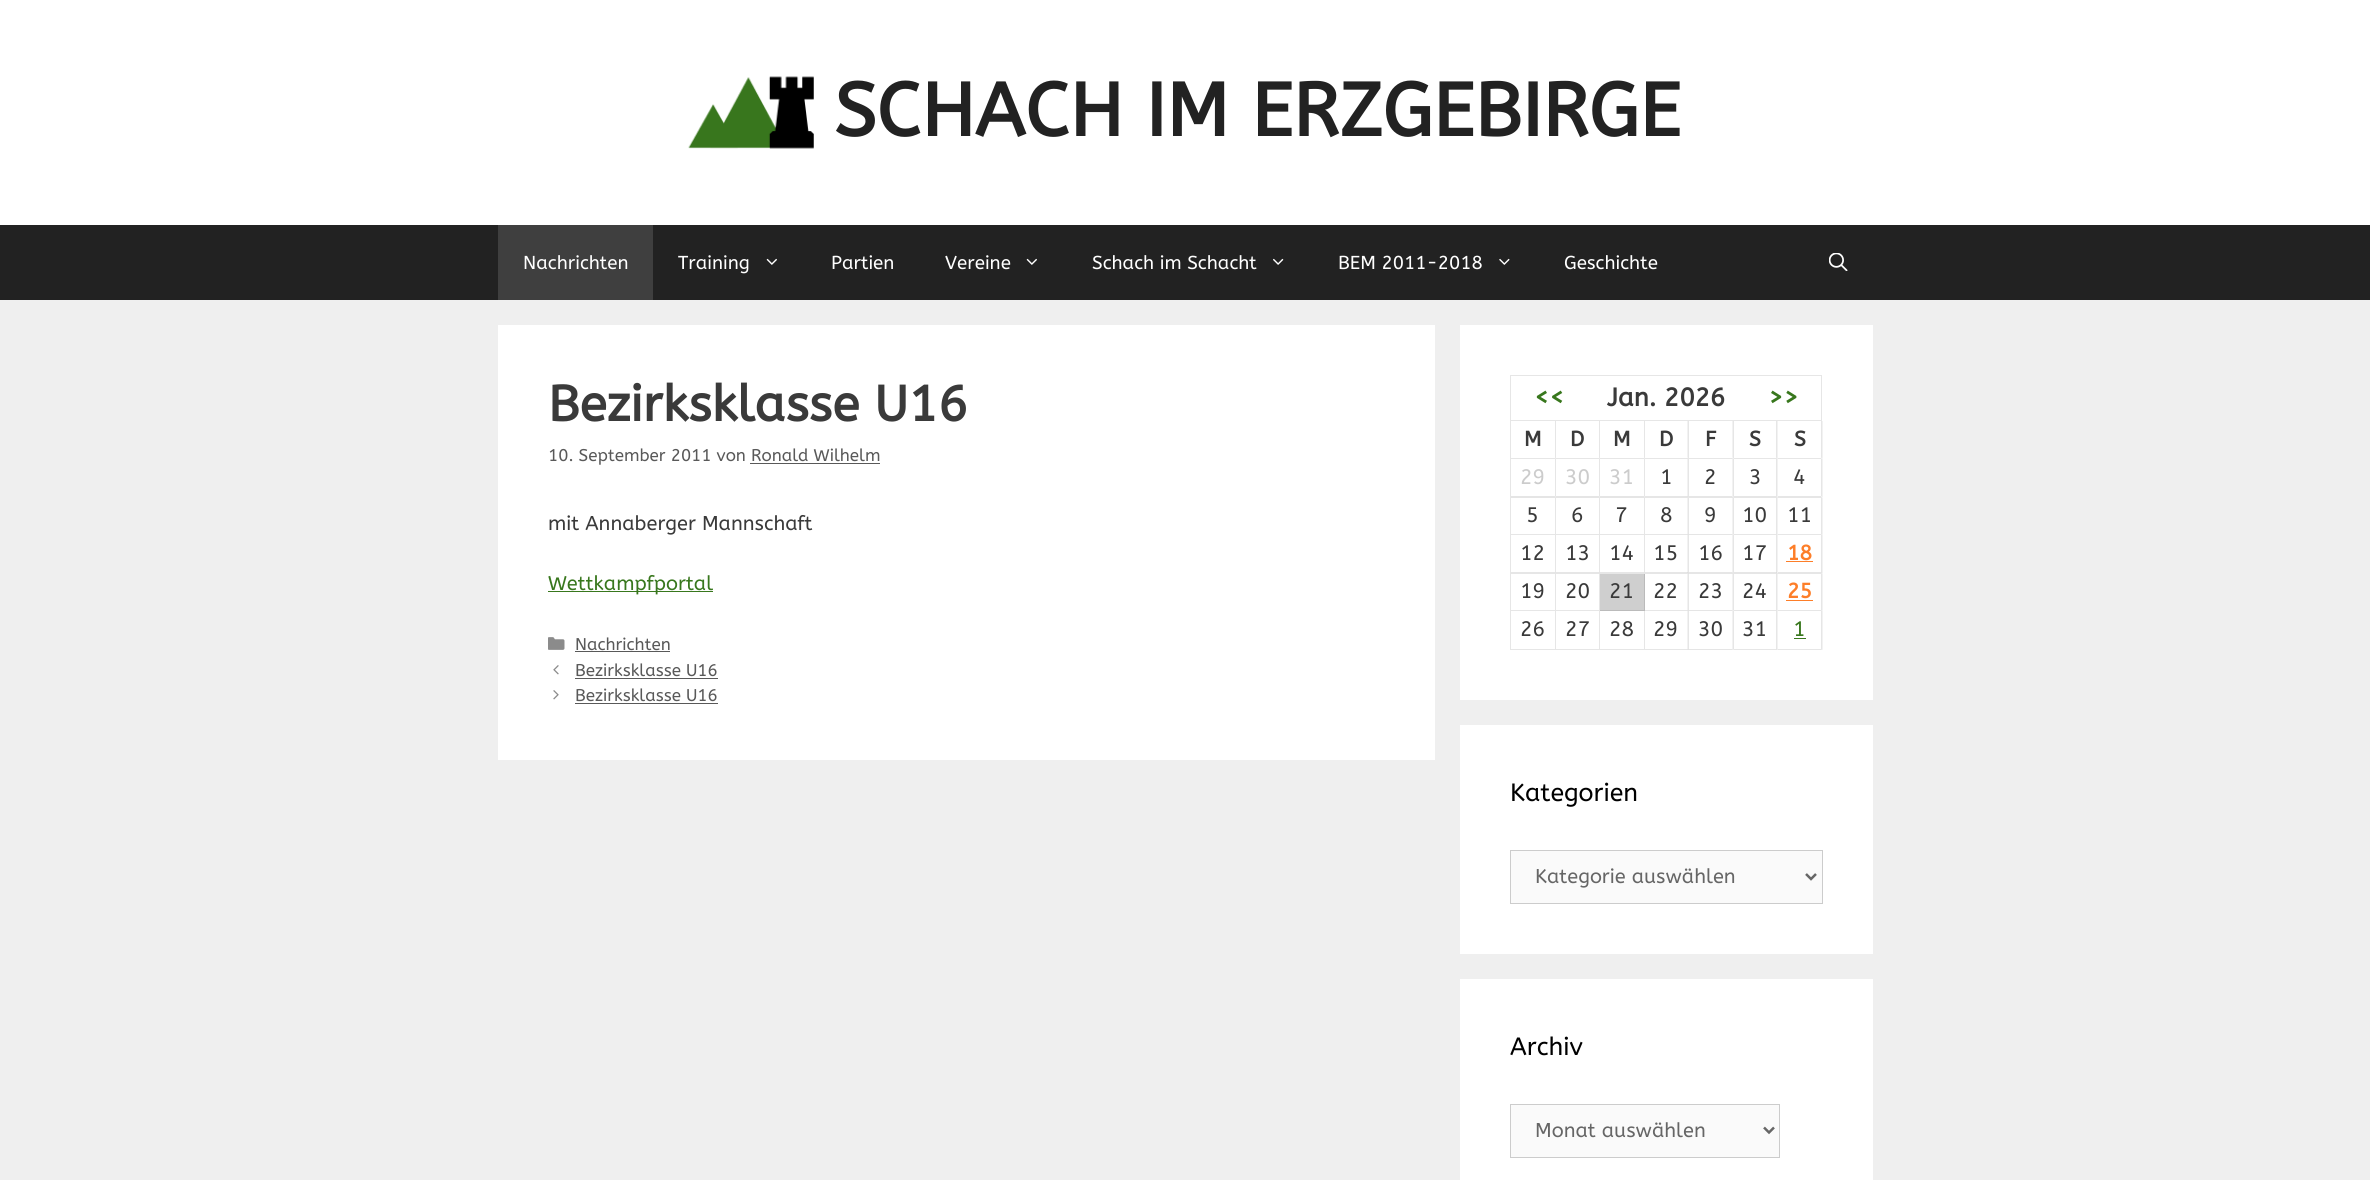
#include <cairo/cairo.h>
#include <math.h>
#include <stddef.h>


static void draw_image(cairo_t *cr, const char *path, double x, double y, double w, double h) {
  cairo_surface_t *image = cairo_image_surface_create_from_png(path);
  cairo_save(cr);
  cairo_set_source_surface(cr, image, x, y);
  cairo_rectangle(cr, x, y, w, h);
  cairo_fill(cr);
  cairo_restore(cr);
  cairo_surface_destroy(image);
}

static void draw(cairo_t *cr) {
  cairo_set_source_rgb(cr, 239 / 255.0, 239 / 255.0, 239 / 255.0);
  cairo_paint(cr);
  cairo_set_source_rgb(cr, 1, 1, 1);
  cairo_rectangle(cr, 0, 0, 2370, 225);
  cairo_fill(cr);
  draw_image(cr, "images/1.png", 688, 76, 126, 73);
  cairo_set_source_rgb(cr, 34 / 255.0, 34 / 255.0, 34 / 255.0);
  cairo_rectangle(cr, 0, 225, 2370, 75);
  cairo_fill(cr);
  cairo_set_source_rgb(cr, 63 / 255.0, 63 / 255.0, 63 / 255.0);
  cairo_rectangle(cr, 498, 225, 155, 75);
  cairo_fill(cr);
  draw_image(cr, "images/2.png", 766, 258, 11, 7);
  draw_image(cr, "images/2.png", 1026, 258, 11, 7);
  draw_image(cr, "images/3.png", 1273, 258, 11, 7);
  draw_image(cr, "images/4.png", 1499, 258, 11, 7);
  draw_image(cr, "images/5.png", 1829, 253, 19, 18);
  cairo_set_source_rgb(cr, 1, 1, 1);
  cairo_rectangle(cr, 498, 325, 937, 435);
  cairo_fill(cr);
  cairo_set_source_rgb(cr, 89 / 255.0, 89 / 255.0, 89 / 255.0);
  cairo_rectangle(cr, 750, 463, 130, 1);
  cairo_fill(cr);
  cairo_set_source_rgb(cr, 56 / 255.0, 119 / 255.0, 29 / 255.0);
  cairo_rectangle(cr, 548, 591, 165, 1);
  cairo_fill(cr);
  draw_image(cr, "images/6.png", 548, 637, 17, 13);
  cairo_set_source_rgb(cr, 89 / 255.0, 89 / 255.0, 89 / 255.0);
  cairo_rectangle(cr, 575, 651, 95, 1);
  cairo_fill(cr);
  draw_image(cr, "images/7.png", 553, 665, 6, 10);
  cairo_rectangle(cr, 575, 678, 143, 1);
  cairo_fill(cr);
  draw_image(cr, "images/8.png", 553, 690, 6, 10);
  cairo_rectangle(cr, 575, 703, 143, 1);
  cairo_fill(cr);
  cairo_set_source_rgb(cr, 1, 1, 1);
  cairo_rectangle(cr, 1460, 325, 413, 375);
  cairo_fill(cr);
  cairo_set_source_rgb(cr, 230 / 255.0, 230 / 255.0, 230 / 255.0);
  cairo_new_path(cr);
  cairo_move_to(cr, 1510, 375);
  cairo_line_to(cr, 1822, 375);
  cairo_line_to(cr, 1822, 376);
  cairo_line_to(cr, 1511, 376);
  cairo_close_path(cr);
  cairo_fill(cr);
  cairo_set_source_rgba(cr, 0, 0, 0, 0.1);
  cairo_new_path(cr);
  cairo_move_to(cr, 1510, 650);
  cairo_line_to(cr, 1510, 375);
  cairo_line_to(cr, 1511, 376);
  cairo_line_to(cr, 1511, 650);
  cairo_close_path(cr);
  cairo_fill(cr);
  cairo_set_source_rgb(cr, 230 / 255.0, 230 / 255.0, 230 / 255.0);
  cairo_new_path(cr);
  cairo_move_to(cr, 1822, 376);
  cairo_line_to(cr, 1822, 421);
  cairo_line_to(cr, 1821, 420);
  cairo_line_to(cr, 1821, 376);
  cairo_close_path(cr);
  cairo_fill(cr);
  cairo_set_source_rgba(cr, 0, 0, 0, 0.1);
  cairo_new_path(cr);
  cairo_move_to(cr, 1822, 421);
  cairo_line_to(cr, 1511, 421);
  cairo_line_to(cr, 1511, 420);
  cairo_line_to(cr, 1821, 420);
  cairo_close_path(cr);
  cairo_fill(cr);
  cairo_set_source_rgb(cr, 230 / 255.0, 230 / 255.0, 230 / 255.0);
  cairo_new_path(cr);
  cairo_move_to(cr, 1556, 421);
  cairo_line_to(cr, 1556, 459);
  cairo_line_to(cr, 1555, 457.5);
  cairo_line_to(cr, 1555, 421);
  cairo_close_path(cr);
  cairo_fill(cr);
  cairo_set_source_rgba(cr, 0, 0, 0, 0.1);
  cairo_new_path(cr);
  cairo_move_to(cr, 1556, 459);
  cairo_line_to(cr, 1511, 459);
  cairo_line_to(cr, 1511, 458);
  cairo_line_to(cr, 1555, 458);
  cairo_close_path(cr);
  cairo_fill(cr);
  cairo_set_source_rgb(cr, 230 / 255.0, 230 / 255.0, 230 / 255.0);
  cairo_new_path(cr);
  cairo_move_to(cr, 1600, 421);
  cairo_line_to(cr, 1600, 459);
  cairo_line_to(cr, 1599, 457.5);
  cairo_line_to(cr, 1599, 421);
  cairo_close_path(cr);
  cairo_fill(cr);
  cairo_set_source_rgba(cr, 0, 0, 0, 0.1);
  cairo_new_path(cr);
  cairo_move_to(cr, 1600, 459);
  cairo_line_to(cr, 1556, 459);
  cairo_line_to(cr, 1556, 458);
  cairo_line_to(cr, 1599, 458);
  cairo_close_path(cr);
  cairo_fill(cr);
  cairo_set_source_rgb(cr, 230 / 255.0, 230 / 255.0, 230 / 255.0);
  cairo_new_path(cr);
  cairo_move_to(cr, 1645, 421);
  cairo_line_to(cr, 1645, 459);
  cairo_line_to(cr, 1644, 457.5);
  cairo_line_to(cr, 1644, 421);
  cairo_close_path(cr);
  cairo_fill(cr);
  cairo_set_source_rgba(cr, 0, 0, 0, 0.1);
  cairo_new_path(cr);
  cairo_move_to(cr, 1645, 459);
  cairo_line_to(cr, 1600, 459);
  cairo_line_to(cr, 1600, 458);
  cairo_line_to(cr, 1644, 458);
  cairo_close_path(cr);
  cairo_fill(cr);
  cairo_set_source_rgb(cr, 230 / 255.0, 230 / 255.0, 230 / 255.0);
  cairo_new_path(cr);
  cairo_move_to(cr, 1689, 421);
  cairo_line_to(cr, 1689, 459);
  cairo_line_to(cr, 1687.5, 457.5);
  cairo_line_to(cr, 1687.5, 421);
  cairo_close_path(cr);
  cairo_fill(cr);
  cairo_set_source_rgba(cr, 0, 0, 0, 0.1);
  cairo_new_path(cr);
  cairo_move_to(cr, 1689, 459);
  cairo_line_to(cr, 1645, 459);
  cairo_line_to(cr, 1645, 458);
  cairo_line_to(cr, 1688, 458);
  cairo_close_path(cr);
  cairo_fill(cr);
  cairo_set_source_rgb(cr, 230 / 255.0, 230 / 255.0, 230 / 255.0);
  cairo_new_path(cr);
  cairo_move_to(cr, 1734, 421);
  cairo_line_to(cr, 1734, 459);
  cairo_line_to(cr, 1732.5, 457.5);
  cairo_line_to(cr, 1732.5, 421);
  cairo_close_path(cr);
  cairo_fill(cr);
  cairo_new_path(cr);
  cairo_move_to(cr, 1734, 459);
  cairo_line_to(cr, 1689, 459);
  cairo_line_to(cr, 1689, 458);
  cairo_line_to(cr, 1732, 458);
  cairo_close_path(cr);
  cairo_fill(cr);
  cairo_new_path(cr);
  cairo_move_to(cr, 1777.5, 421);
  cairo_line_to(cr, 1777.5, 459);
  cairo_line_to(cr, 1776, 457.5);
  cairo_line_to(cr, 1776, 421);
  cairo_close_path(cr);
  cairo_fill(cr);
  cairo_set_source_rgba(cr, 0, 0, 0, 0.1);
  cairo_new_path(cr);
  cairo_move_to(cr, 1778, 459);
  cairo_line_to(cr, 1734, 459);
  cairo_line_to(cr, 1734, 458);
  cairo_line_to(cr, 1776, 458);
  cairo_close_path(cr);
  cairo_fill(cr);
  cairo_set_source_rgb(cr, 230 / 255.0, 230 / 255.0, 230 / 255.0);
  cairo_new_path(cr);
  cairo_move_to(cr, 1822.5, 421);
  cairo_line_to(cr, 1822.5, 459);
  cairo_line_to(cr, 1821, 457.5);
  cairo_line_to(cr, 1821, 421);
  cairo_close_path(cr);
  cairo_fill(cr);
  cairo_set_source_rgba(cr, 0, 0, 0, 0.1);
  cairo_new_path(cr);
  cairo_move_to(cr, 1822, 459);
  cairo_line_to(cr, 1778, 459);
  cairo_line_to(cr, 1778, 458);
  cairo_line_to(cr, 1821, 458);
  cairo_close_path(cr);
  cairo_fill(cr);
  cairo_set_source_rgb(cr, 230 / 255.0, 230 / 255.0, 230 / 255.0);
  cairo_new_path(cr);
  cairo_move_to(cr, 1556, 459);
  cairo_line_to(cr, 1556, 497.5);
  cairo_line_to(cr, 1555, 496);
  cairo_line_to(cr, 1555, 459);
  cairo_close_path(cr);
  cairo_fill(cr);
  cairo_set_source_rgb(cr, 229 / 255.0, 229 / 255.0, 229 / 255.0);
  cairo_new_path(cr);
  cairo_move_to(cr, 1556, 498);
  cairo_line_to(cr, 1511, 498);
  cairo_line_to(cr, 1511, 496);
  cairo_line_to(cr, 1555, 496);
  cairo_close_path(cr);
  cairo_fill(cr);
  cairo_set_source_rgb(cr, 230 / 255.0, 230 / 255.0, 230 / 255.0);
  cairo_new_path(cr);
  cairo_move_to(cr, 1600, 459);
  cairo_line_to(cr, 1600, 497.5);
  cairo_line_to(cr, 1599, 496);
  cairo_line_to(cr, 1599, 459);
  cairo_close_path(cr);
  cairo_fill(cr);
  cairo_set_source_rgb(cr, 229 / 255.0, 229 / 255.0, 229 / 255.0);
  cairo_new_path(cr);
  cairo_move_to(cr, 1600, 498);
  cairo_line_to(cr, 1556, 498);
  cairo_line_to(cr, 1556, 496);
  cairo_line_to(cr, 1599, 496);
  cairo_close_path(cr);
  cairo_fill(cr);
  cairo_set_source_rgb(cr, 230 / 255.0, 230 / 255.0, 230 / 255.0);
  cairo_new_path(cr);
  cairo_move_to(cr, 1645, 459);
  cairo_line_to(cr, 1645, 497.5);
  cairo_line_to(cr, 1644, 496);
  cairo_line_to(cr, 1644, 459);
  cairo_close_path(cr);
  cairo_fill(cr);
  cairo_set_source_rgb(cr, 229 / 255.0, 229 / 255.0, 229 / 255.0);
  cairo_new_path(cr);
  cairo_move_to(cr, 1645, 498);
  cairo_line_to(cr, 1600, 498);
  cairo_line_to(cr, 1600, 496);
  cairo_line_to(cr, 1644, 496);
  cairo_close_path(cr);
  cairo_fill(cr);
  cairo_set_source_rgb(cr, 230 / 255.0, 230 / 255.0, 230 / 255.0);
  cairo_new_path(cr);
  cairo_move_to(cr, 1689, 459);
  cairo_line_to(cr, 1689, 497.5);
  cairo_line_to(cr, 1687.5, 496);
  cairo_line_to(cr, 1687.5, 459);
  cairo_close_path(cr);
  cairo_fill(cr);
  cairo_set_source_rgba(cr, 0, 0, 0, 0.1);
  cairo_new_path(cr);
  cairo_move_to(cr, 1689, 498);
  cairo_line_to(cr, 1645, 498);
  cairo_line_to(cr, 1645, 496);
  cairo_line_to(cr, 1688, 496);
  cairo_close_path(cr);
  cairo_fill(cr);
  cairo_set_source_rgb(cr, 230 / 255.0, 230 / 255.0, 230 / 255.0);
  cairo_new_path(cr);
  cairo_move_to(cr, 1734, 459);
  cairo_line_to(cr, 1734, 497.5);
  cairo_line_to(cr, 1732.5, 496);
  cairo_line_to(cr, 1732.5, 459);
  cairo_close_path(cr);
  cairo_fill(cr);
  cairo_set_source_rgba(cr, 0, 0, 0, 0.1);
  cairo_new_path(cr);
  cairo_move_to(cr, 1734, 498);
  cairo_line_to(cr, 1689, 498);
  cairo_line_to(cr, 1689, 496);
  cairo_line_to(cr, 1732, 496);
  cairo_close_path(cr);
  cairo_fill(cr);
  cairo_set_source_rgb(cr, 230 / 255.0, 230 / 255.0, 230 / 255.0);
  cairo_new_path(cr);
  cairo_move_to(cr, 1777.5, 459);
  cairo_line_to(cr, 1777.5, 497.5);
  cairo_line_to(cr, 1776, 496);
  cairo_line_to(cr, 1776, 459);
  cairo_close_path(cr);
  cairo_fill(cr);
  cairo_set_source_rgba(cr, 0, 0, 0, 0.1);
  cairo_new_path(cr);
  cairo_move_to(cr, 1778, 498);
  cairo_line_to(cr, 1734, 498);
  cairo_line_to(cr, 1734, 496);
  cairo_line_to(cr, 1776, 496);
  cairo_close_path(cr);
  cairo_fill(cr);
  cairo_set_source_rgb(cr, 230 / 255.0, 230 / 255.0, 230 / 255.0);
  cairo_new_path(cr);
  cairo_move_to(cr, 1822.5, 459);
  cairo_line_to(cr, 1822.5, 497.5);
  cairo_line_to(cr, 1821, 496);
  cairo_line_to(cr, 1821, 459);
  cairo_close_path(cr);
  cairo_fill(cr);
  cairo_new_path(cr);
  cairo_move_to(cr, 1822, 498);
  cairo_line_to(cr, 1778, 498);
  cairo_line_to(cr, 1778, 496);
  cairo_line_to(cr, 1821, 496);
  cairo_close_path(cr);
  cairo_fill(cr);
  cairo_new_path(cr);
  cairo_move_to(cr, 1556, 497.5);
  cairo_line_to(cr, 1556, 535);
  cairo_line_to(cr, 1555, 534);
  cairo_line_to(cr, 1555, 497.5);
  cairo_close_path(cr);
  cairo_fill(cr);
  cairo_set_source_rgba(cr, 0, 0, 0, 0.1);
  cairo_new_path(cr);
  cairo_move_to(cr, 1556, 535);
  cairo_line_to(cr, 1511, 535);
  cairo_line_to(cr, 1511, 534);
  cairo_line_to(cr, 1555, 534);
  cairo_close_path(cr);
  cairo_fill(cr);
  cairo_set_source_rgb(cr, 230 / 255.0, 230 / 255.0, 230 / 255.0);
  cairo_new_path(cr);
  cairo_move_to(cr, 1600, 497.5);
  cairo_line_to(cr, 1600, 535);
  cairo_line_to(cr, 1599, 534);
  cairo_line_to(cr, 1599, 497.5);
  cairo_close_path(cr);
  cairo_fill(cr);
  cairo_set_source_rgba(cr, 0, 0, 0, 0.1);
  cairo_new_path(cr);
  cairo_move_to(cr, 1600, 535);
  cairo_line_to(cr, 1556, 535);
  cairo_line_to(cr, 1556, 534);
  cairo_line_to(cr, 1599, 534);
  cairo_close_path(cr);
  cairo_fill(cr);
  cairo_set_source_rgb(cr, 230 / 255.0, 230 / 255.0, 230 / 255.0);
  cairo_new_path(cr);
  cairo_move_to(cr, 1645, 497.5);
  cairo_line_to(cr, 1645, 535);
  cairo_line_to(cr, 1644, 534);
  cairo_line_to(cr, 1644, 497.5);
  cairo_close_path(cr);
  cairo_fill(cr);
  cairo_set_source_rgba(cr, 0, 0, 0, 0.1);
  cairo_new_path(cr);
  cairo_move_to(cr, 1645, 535);
  cairo_line_to(cr, 1600, 535);
  cairo_line_to(cr, 1600, 534);
  cairo_line_to(cr, 1644, 534);
  cairo_close_path(cr);
  cairo_fill(cr);
  cairo_set_source_rgb(cr, 230 / 255.0, 230 / 255.0, 230 / 255.0);
  cairo_new_path(cr);
  cairo_move_to(cr, 1689, 497.5);
  cairo_line_to(cr, 1689, 535);
  cairo_line_to(cr, 1687.5, 534);
  cairo_line_to(cr, 1687.5, 497.5);
  cairo_close_path(cr);
  cairo_fill(cr);
  cairo_set_source_rgba(cr, 0, 0, 0, 0.1);
  cairo_new_path(cr);
  cairo_move_to(cr, 1689, 535);
  cairo_line_to(cr, 1645, 535);
  cairo_line_to(cr, 1645, 534);
  cairo_line_to(cr, 1688, 534);
  cairo_close_path(cr);
  cairo_fill(cr);
  cairo_set_source_rgb(cr, 230 / 255.0, 230 / 255.0, 230 / 255.0);
  cairo_new_path(cr);
  cairo_move_to(cr, 1734, 497.5);
  cairo_line_to(cr, 1734, 535);
  cairo_line_to(cr, 1732.5, 534);
  cairo_line_to(cr, 1732.5, 497.5);
  cairo_close_path(cr);
  cairo_fill(cr);
  cairo_set_source_rgb(cr, 229 / 255.0, 229 / 255.0, 229 / 255.0);
  cairo_new_path(cr);
  cairo_move_to(cr, 1734, 535);
  cairo_line_to(cr, 1689, 535);
  cairo_line_to(cr, 1689, 534);
  cairo_line_to(cr, 1732, 534);
  cairo_close_path(cr);
  cairo_fill(cr);
  cairo_set_source_rgb(cr, 230 / 255.0, 230 / 255.0, 230 / 255.0);
  cairo_new_path(cr);
  cairo_move_to(cr, 1777.5, 497.5);
  cairo_line_to(cr, 1777.5, 535);
  cairo_line_to(cr, 1776, 534);
  cairo_line_to(cr, 1776, 497.5);
  cairo_close_path(cr);
  cairo_fill(cr);
  cairo_set_source_rgba(cr, 0, 0, 0, 0.1);
  cairo_new_path(cr);
  cairo_move_to(cr, 1778, 535);
  cairo_line_to(cr, 1734, 535);
  cairo_line_to(cr, 1734, 534);
  cairo_line_to(cr, 1776, 534);
  cairo_close_path(cr);
  cairo_fill(cr);
  cairo_set_source_rgb(cr, 230 / 255.0, 230 / 255.0, 230 / 255.0);
  cairo_new_path(cr);
  cairo_move_to(cr, 1822.5, 497.5);
  cairo_line_to(cr, 1822.5, 535);
  cairo_line_to(cr, 1821, 534);
  cairo_line_to(cr, 1821, 497.5);
  cairo_close_path(cr);
  cairo_fill(cr);
  cairo_set_source_rgba(cr, 0, 0, 0, 0.1);
  cairo_new_path(cr);
  cairo_move_to(cr, 1822, 535);
  cairo_line_to(cr, 1778, 535);
  cairo_line_to(cr, 1778, 534);
  cairo_line_to(cr, 1821, 534);
  cairo_close_path(cr);
  cairo_fill(cr);
  cairo_set_source_rgb(cr, 230 / 255.0, 230 / 255.0, 230 / 255.0);
  cairo_new_path(cr);
  cairo_move_to(cr, 1556, 535);
  cairo_line_to(cr, 1556, 574);
  cairo_line_to(cr, 1555, 572.5);
  cairo_line_to(cr, 1555, 535);
  cairo_close_path(cr);
  cairo_fill(cr);
  cairo_set_source_rgba(cr, 0, 0, 0, 0.1);
  cairo_new_path(cr);
  cairo_move_to(cr, 1556, 574);
  cairo_line_to(cr, 1511, 574);
  cairo_line_to(cr, 1511, 572);
  cairo_line_to(cr, 1555, 572);
  cairo_close_path(cr);
  cairo_fill(cr);
  cairo_set_source_rgb(cr, 230 / 255.0, 230 / 255.0, 230 / 255.0);
  cairo_new_path(cr);
  cairo_move_to(cr, 1600, 535);
  cairo_line_to(cr, 1600, 574);
  cairo_line_to(cr, 1599, 572.5);
  cairo_line_to(cr, 1599, 535);
  cairo_close_path(cr);
  cairo_fill(cr);
  cairo_set_source_rgba(cr, 0, 0, 0, 0.1);
  cairo_new_path(cr);
  cairo_move_to(cr, 1600, 574);
  cairo_line_to(cr, 1556, 574);
  cairo_line_to(cr, 1556, 572);
  cairo_line_to(cr, 1599, 572);
  cairo_close_path(cr);
  cairo_fill(cr);
  cairo_set_source_rgb(cr, 230 / 255.0, 230 / 255.0, 230 / 255.0);
  cairo_new_path(cr);
  cairo_move_to(cr, 1645, 535);
  cairo_line_to(cr, 1645, 574);
  cairo_line_to(cr, 1644, 572.5);
  cairo_line_to(cr, 1644, 535);
  cairo_close_path(cr);
  cairo_fill(cr);
  cairo_set_source_rgba(cr, 0, 0, 0, 0.1);
  cairo_new_path(cr);
  cairo_move_to(cr, 1645, 574);
  cairo_line_to(cr, 1600, 574);
  cairo_line_to(cr, 1600, 572);
  cairo_line_to(cr, 1644, 572);
  cairo_close_path(cr);
  cairo_fill(cr);
  cairo_set_source_rgb(cr, 230 / 255.0, 230 / 255.0, 230 / 255.0);
  cairo_new_path(cr);
  cairo_move_to(cr, 1689, 535);
  cairo_line_to(cr, 1689, 574);
  cairo_line_to(cr, 1687.5, 572.5);
  cairo_line_to(cr, 1687.5, 535);
  cairo_close_path(cr);
  cairo_fill(cr);
  cairo_set_source_rgba(cr, 0, 0, 0, 0.1);
  cairo_new_path(cr);
  cairo_move_to(cr, 1689, 574);
  cairo_line_to(cr, 1645, 574);
  cairo_line_to(cr, 1645, 572);
  cairo_line_to(cr, 1688, 572);
  cairo_close_path(cr);
  cairo_fill(cr);
  cairo_set_source_rgb(cr, 230 / 255.0, 230 / 255.0, 230 / 255.0);
  cairo_new_path(cr);
  cairo_move_to(cr, 1734, 535);
  cairo_line_to(cr, 1734, 574);
  cairo_line_to(cr, 1732.5, 572.5);
  cairo_line_to(cr, 1732.5, 535);
  cairo_close_path(cr);
  cairo_fill(cr);
  cairo_set_source_rgba(cr, 0, 0, 0, 0.1);
  cairo_new_path(cr);
  cairo_move_to(cr, 1734, 574);
  cairo_line_to(cr, 1689, 574);
  cairo_line_to(cr, 1689, 572);
  cairo_line_to(cr, 1732, 572);
  cairo_close_path(cr);
  cairo_fill(cr);
  cairo_set_source_rgb(cr, 230 / 255.0, 230 / 255.0, 230 / 255.0);
  cairo_new_path(cr);
  cairo_move_to(cr, 1777.5, 535);
  cairo_line_to(cr, 1777.5, 574);
  cairo_line_to(cr, 1776, 572.5);
  cairo_line_to(cr, 1776, 535);
  cairo_close_path(cr);
  cairo_fill(cr);
  cairo_set_source_rgba(cr, 0, 0, 0, 0.1);
  cairo_new_path(cr);
  cairo_move_to(cr, 1778, 574);
  cairo_line_to(cr, 1734, 574);
  cairo_line_to(cr, 1734, 572);
  cairo_line_to(cr, 1776, 572);
  cairo_close_path(cr);
  cairo_fill(cr);
  cairo_set_source_rgb(cr, 230 / 255.0, 230 / 255.0, 230 / 255.0);
  cairo_new_path(cr);
  cairo_move_to(cr, 1822.5, 535);
  cairo_line_to(cr, 1822.5, 574);
  cairo_line_to(cr, 1821, 572.5);
  cairo_line_to(cr, 1821, 535);
  cairo_close_path(cr);
  cairo_fill(cr);
  cairo_set_source_rgba(cr, 0, 0, 0, 0.1);
  cairo_new_path(cr);
  cairo_move_to(cr, 1822, 574);
  cairo_line_to(cr, 1778, 574);
  cairo_line_to(cr, 1778, 572);
  cairo_line_to(cr, 1821, 572);
  cairo_close_path(cr);
  cairo_fill(cr);
  cairo_set_source_rgb(cr, 253 / 255.0, 126 / 255.0, 41 / 255.0);
  cairo_rectangle(cr, 1786, 561, 27, 1);
  cairo_fill(cr);
  cairo_set_source_rgb(cr, 230 / 255.0, 230 / 255.0, 230 / 255.0);
  cairo_new_path(cr);
  cairo_move_to(cr, 1556, 574);
  cairo_line_to(cr, 1556, 611);
  cairo_line_to(cr, 1555, 610);
  cairo_line_to(cr, 1555, 574);
  cairo_close_path(cr);
  cairo_fill(cr);
  cairo_set_source_rgba(cr, 0, 0, 0, 0.1);
  cairo_new_path(cr);
  cairo_move_to(cr, 1556, 611);
  cairo_line_to(cr, 1511, 611);
  cairo_line_to(cr, 1511, 610);
  cairo_line_to(cr, 1555, 610);
  cairo_close_path(cr);
  cairo_fill(cr);
  cairo_set_source_rgb(cr, 230 / 255.0, 230 / 255.0, 230 / 255.0);
  cairo_new_path(cr);
  cairo_move_to(cr, 1600, 574);
  cairo_line_to(cr, 1600, 611);
  cairo_line_to(cr, 1599, 610);
  cairo_line_to(cr, 1599, 574);
  cairo_close_path(cr);
  cairo_fill(cr);
  cairo_set_source_rgba(cr, 0, 0, 0, 0.1);
  cairo_new_path(cr);
  cairo_move_to(cr, 1600, 611);
  cairo_line_to(cr, 1556, 611);
  cairo_line_to(cr, 1556, 610);
  cairo_line_to(cr, 1599, 610);
  cairo_close_path(cr);
  cairo_fill(cr);
  cairo_set_source_rgb(cr, 207 / 255.0, 207 / 255.0, 207 / 255.0);
  cairo_rectangle(cr, 1600, 574, 45, 37);
  cairo_fill(cr);
  cairo_set_source_rgb(cr, 186 / 255.0, 186 / 255.0, 186 / 255.0);
  cairo_new_path(cr);
  cairo_move_to(cr, 1645, 574);
  cairo_line_to(cr, 1645, 611);
  cairo_line_to(cr, 1644, 610);
  cairo_line_to(cr, 1644, 574);
  cairo_close_path(cr);
  cairo_fill(cr);
  cairo_set_source_rgba(cr, 0, 0, 0, 0.1);
  cairo_new_path(cr);
  cairo_move_to(cr, 1645, 611);
  cairo_line_to(cr, 1600, 611);
  cairo_line_to(cr, 1600, 610);
  cairo_line_to(cr, 1644, 610);
  cairo_close_path(cr);
  cairo_fill(cr);
  cairo_set_source_rgb(cr, 230 / 255.0, 230 / 255.0, 230 / 255.0);
  cairo_new_path(cr);
  cairo_move_to(cr, 1689, 574);
  cairo_line_to(cr, 1689, 611);
  cairo_line_to(cr, 1687.5, 610);
  cairo_line_to(cr, 1687.5, 574);
  cairo_close_path(cr);
  cairo_fill(cr);
  cairo_set_source_rgba(cr, 0, 0, 0, 0.1);
  cairo_new_path(cr);
  cairo_move_to(cr, 1689, 611);
  cairo_line_to(cr, 1645, 611);
  cairo_line_to(cr, 1645, 610);
  cairo_line_to(cr, 1688, 610);
  cairo_close_path(cr);
  cairo_fill(cr);
  cairo_set_source_rgb(cr, 230 / 255.0, 230 / 255.0, 230 / 255.0);
  cairo_new_path(cr);
  cairo_move_to(cr, 1734, 574);
  cairo_line_to(cr, 1734, 611);
  cairo_line_to(cr, 1732.5, 610);
  cairo_line_to(cr, 1732.5, 574);
  cairo_close_path(cr);
  cairo_fill(cr);
  cairo_set_source_rgb(cr, 229 / 255.0, 229 / 255.0, 229 / 255.0);
  cairo_new_path(cr);
  cairo_move_to(cr, 1734, 611);
  cairo_line_to(cr, 1689, 611);
  cairo_line_to(cr, 1689, 610);
  cairo_line_to(cr, 1732, 610);
  cairo_close_path(cr);
  cairo_fill(cr);
  cairo_set_source_rgb(cr, 230 / 255.0, 230 / 255.0, 230 / 255.0);
  cairo_new_path(cr);
  cairo_move_to(cr, 1777.5, 574);
  cairo_line_to(cr, 1777.5, 611);
  cairo_line_to(cr, 1776, 610);
  cairo_line_to(cr, 1776, 574);
  cairo_close_path(cr);
  cairo_fill(cr);
  cairo_set_source_rgba(cr, 0, 0, 0, 0.1);
  cairo_new_path(cr);
  cairo_move_to(cr, 1778, 611);
  cairo_line_to(cr, 1734, 611);
  cairo_line_to(cr, 1734, 610);
  cairo_line_to(cr, 1776, 610);
  cairo_close_path(cr);
  cairo_fill(cr);
  cairo_set_source_rgb(cr, 230 / 255.0, 230 / 255.0, 230 / 255.0);
  cairo_new_path(cr);
  cairo_move_to(cr, 1822.5, 574);
  cairo_line_to(cr, 1822.5, 611);
  cairo_line_to(cr, 1821, 610);
  cairo_line_to(cr, 1821, 574);
  cairo_close_path(cr);
  cairo_fill(cr);
  cairo_set_source_rgba(cr, 0, 0, 0, 0.1);
  cairo_new_path(cr);
  cairo_move_to(cr, 1822, 611);
  cairo_line_to(cr, 1778, 611);
  cairo_line_to(cr, 1778, 610);
  cairo_line_to(cr, 1821, 610);
  cairo_close_path(cr);
  cairo_fill(cr);
  cairo_set_source_rgb(cr, 253 / 255.0, 126 / 255.0, 41 / 255.0);
  cairo_rectangle(cr, 1786, 600, 27, 1);
  cairo_fill(cr);
  cairo_set_source_rgb(cr, 230 / 255.0, 230 / 255.0, 230 / 255.0);
  cairo_new_path(cr);
  cairo_move_to(cr, 1556, 611);
  cairo_line_to(cr, 1556, 650);
  cairo_line_to(cr, 1555, 649);
  cairo_line_to(cr, 1555, 611);
  cairo_close_path(cr);
  cairo_fill(cr);
  cairo_set_source_rgba(cr, 0, 0, 0, 0.1);
  cairo_new_path(cr);
  cairo_move_to(cr, 1556, 650);
  cairo_line_to(cr, 1511, 650);
  cairo_line_to(cr, 1511, 649);
  cairo_line_to(cr, 1555, 649);
  cairo_close_path(cr);
  cairo_fill(cr);
  cairo_set_source_rgb(cr, 230 / 255.0, 230 / 255.0, 230 / 255.0);
  cairo_new_path(cr);
  cairo_move_to(cr, 1600, 611);
  cairo_line_to(cr, 1600, 650);
  cairo_line_to(cr, 1599, 649);
  cairo_line_to(cr, 1599, 611);
  cairo_close_path(cr);
  cairo_fill(cr);
  cairo_set_source_rgba(cr, 0, 0, 0, 0.1);
  cairo_new_path(cr);
  cairo_move_to(cr, 1600, 650);
  cairo_line_to(cr, 1556, 650);
  cairo_line_to(cr, 1556, 649);
  cairo_line_to(cr, 1599, 649);
  cairo_close_path(cr);
  cairo_fill(cr);
  cairo_set_source_rgb(cr, 230 / 255.0, 230 / 255.0, 230 / 255.0);
  cairo_new_path(cr);
  cairo_move_to(cr, 1645, 611);
  cairo_line_to(cr, 1645, 650);
  cairo_line_to(cr, 1644, 649);
  cairo_line_to(cr, 1644, 611);
  cairo_close_path(cr);
  cairo_fill(cr);
  cairo_set_source_rgba(cr, 0, 0, 0, 0.1);
  cairo_new_path(cr);
  cairo_move_to(cr, 1645, 650);
  cairo_line_to(cr, 1600, 650);
  cairo_line_to(cr, 1600, 649);
  cairo_line_to(cr, 1644, 649);
  cairo_close_path(cr);
  cairo_fill(cr);
  cairo_set_source_rgb(cr, 230 / 255.0, 230 / 255.0, 230 / 255.0);
  cairo_new_path(cr);
  cairo_move_to(cr, 1689, 611);
  cairo_line_to(cr, 1689, 650);
  cairo_line_to(cr, 1687.5, 649);
  cairo_line_to(cr, 1687.5, 611);
  cairo_close_path(cr);
  cairo_fill(cr);
  cairo_set_source_rgba(cr, 0, 0, 0, 0.1);
  cairo_new_path(cr);
  cairo_move_to(cr, 1689, 650);
  cairo_line_to(cr, 1645, 650);
  cairo_line_to(cr, 1645, 649);
  cairo_line_to(cr, 1688, 649);
  cairo_close_path(cr);
  cairo_fill(cr);
  cairo_set_source_rgb(cr, 230 / 255.0, 230 / 255.0, 230 / 255.0);
  cairo_new_path(cr);
  cairo_move_to(cr, 1734, 611);
  cairo_line_to(cr, 1734, 650);
  cairo_line_to(cr, 1732.5, 649);
  cairo_line_to(cr, 1732.5, 611);
  cairo_close_path(cr);
  cairo_fill(cr);
  cairo_set_source_rgb(cr, 229 / 255.0, 229 / 255.0, 229 / 255.0);
  cairo_new_path(cr);
  cairo_move_to(cr, 1734, 650);
  cairo_line_to(cr, 1689, 650);
  cairo_line_to(cr, 1689, 649);
  cairo_line_to(cr, 1732, 649);
  cairo_close_path(cr);
  cairo_fill(cr);
  cairo_set_source_rgb(cr, 230 / 255.0, 230 / 255.0, 230 / 255.0);
  cairo_new_path(cr);
  cairo_move_to(cr, 1777.5, 611);
  cairo_line_to(cr, 1777.5, 650);
  cairo_line_to(cr, 1776, 649);
  cairo_line_to(cr, 1776, 611);
  cairo_close_path(cr);
  cairo_fill(cr);
  cairo_set_source_rgba(cr, 0, 0, 0, 0.1);
  cairo_new_path(cr);
  cairo_move_to(cr, 1778, 650);
  cairo_line_to(cr, 1734, 650);
  cairo_line_to(cr, 1734, 649);
  cairo_line_to(cr, 1776, 649);
  cairo_close_path(cr);
  cairo_fill(cr);
  cairo_set_source_rgb(cr, 230 / 255.0, 230 / 255.0, 230 / 255.0);
  cairo_new_path(cr);
  cairo_move_to(cr, 1822.5, 611);
  cairo_line_to(cr, 1822.5, 650);
  cairo_line_to(cr, 1821, 649);
  cairo_line_to(cr, 1821, 611);
  cairo_close_path(cr);
  cairo_fill(cr);
  cairo_set_source_rgba(cr, 0, 0, 0, 0.1);
  cairo_new_path(cr);
  cairo_move_to(cr, 1822, 650);
  cairo_line_to(cr, 1778, 650);
  cairo_line_to(cr, 1778, 649);
  cairo_line_to(cr, 1821, 649);
  cairo_close_path(cr);
  cairo_fill(cr);
  cairo_set_source_rgb(cr, 56 / 255.0, 119 / 255.0, 29 / 255.0);
  cairo_rectangle(cr, 1794, 638, 12, 1);
  cairo_fill(cr);
  cairo_set_source_rgb(cr, 1, 1, 1);
  cairo_rectangle(cr, 1460, 725, 413, 229);
  cairo_fill(cr);
  cairo_set_source_rgb(cr, 250 / 255.0, 250 / 255.0, 250 / 255.0);
  cairo_rectangle(cr, 1510.5, 850.5, 312, 53);
  cairo_fill_preserve(cr);
  cairo_set_source_rgb(cr, 204 / 255.0, 204 / 255.0, 204 / 255.0);
  cairo_set_line_width(cr, 1);
  cairo_stroke(cr);
  cairo_new_path(cr);
  cairo_move_to(cr, 1806, 874);
  cairo_line_to(cr, 1811, 879);
  cairo_line_to(cr, 1816, 874);
  cairo_set_source_rgb(cr, 102 / 255.0, 102 / 255.0, 102 / 255.0);
  cairo_set_line_width(cr, 2.5);
  cairo_stroke(cr);
  cairo_set_source_rgb(cr, 1, 1, 1);
  cairo_rectangle(cr, 1460, 979, 413, 201);
  cairo_fill(cr);
  cairo_set_source_rgb(cr, 250 / 255.0, 250 / 255.0, 250 / 255.0);
  cairo_rectangle(cr, 1510.5, 1104.5, 269, 53);
  cairo_fill_preserve(cr);
  cairo_set_source_rgb(cr, 204 / 255.0, 204 / 255.0, 204 / 255.0);
  cairo_set_line_width(cr, 1);
  cairo_stroke(cr);
  cairo_new_path(cr);
  cairo_move_to(cr, 1764, 1127.5);
  cairo_line_to(cr, 1769, 1132.5);
  cairo_line_to(cr, 1774, 1127.5);
  cairo_set_source_rgb(cr, 102 / 255.0, 102 / 255.0, 102 / 255.0);
  cairo_set_line_width(cr, 2.5);
  cairo_stroke(cr);
  cairo_select_font_face(cr, "ABeeZee", CAIRO_FONT_SLANT_NORMAL, CAIRO_FONT_WEIGHT_BOLD);
  cairo_set_font_size(cr, 75);
  cairo_set_source_rgb(cr, 34 / 255.0, 34 / 255.0, 34 / 255.0);
  cairo_move_to(cr, 834, 136);
  cairo_show_text(cr, "SCHACH IM ERZGEBIRGE");
  cairo_select_font_face(cr, "ABeeZee", CAIRO_FONT_SLANT_NORMAL, CAIRO_FONT_WEIGHT_NORMAL);
  cairo_set_font_size(cr, 18.75);
  cairo_set_source_rgb(cr, 1, 1, 1);
  cairo_move_to(cr, 523, 269);
  cairo_show_text(cr, "Nachrichten");
  cairo_move_to(cr, 678, 269);
  cairo_show_text(cr, "Training");
  cairo_move_to(cr, 831, 269);
  cairo_show_text(cr, "Partien");
  cairo_move_to(cr, 945, 269);
  cairo_show_text(cr, "Vereine");
  cairo_move_to(cr, 1092, 269);
  cairo_show_text(cr, "Schach im Schacht");
  cairo_move_to(cr, 1338, 269);
  cairo_show_text(cr, "BEM 2011-2018");
  cairo_move_to(cr, 1564, 269);
  cairo_show_text(cr, "Geschichte");
  cairo_select_font_face(cr, "ABeeZee", CAIRO_FONT_SLANT_NORMAL, CAIRO_FONT_WEIGHT_BOLD);
  cairo_set_font_size(cr, 50);
  cairo_set_source_rgb(cr, 58 / 255.0, 58 / 255.0, 58 / 255.0);
  cairo_move_to(cr, 548, 421);
  cairo_show_text(cr, "Bezirksklasse U16");
  cairo_select_font_face(cr, "ABeeZee", CAIRO_FONT_SLANT_NORMAL, CAIRO_FONT_WEIGHT_NORMAL);
  cairo_set_font_size(cr, 17);
  cairo_set_source_rgb(cr, 89 / 255.0, 89 / 255.0, 89 / 255.0);
  cairo_move_to(cr, 548, 461);
  cairo_show_text(cr, "10. September 2011 von Ronald Wilhelm");
  cairo_set_font_size(cr, 20);
  cairo_set_source_rgb(cr, 58 / 255.0, 58 / 255.0, 58 / 255.0);
  cairo_move_to(cr, 548, 530);
  cairo_show_text(cr, "mit Annaberger Mannschaft");
  cairo_set_source_rgb(cr, 56 / 255.0, 119 / 255.0, 29 / 255.0);
  cairo_move_to(cr, 548, 590);
  cairo_show_text(cr, "Wettkampfportal");
  cairo_set_font_size(cr, 17);
  cairo_set_source_rgb(cr, 89 / 255.0, 89 / 255.0, 89 / 255.0);
  cairo_move_to(cr, 575, 650);
  cairo_show_text(cr, "Nachrichten");
  cairo_move_to(cr, 575, 676);
  cairo_show_text(cr, "Bezirksklasse U16");
  cairo_move_to(cr, 575, 701);
  cairo_show_text(cr, "Bezirksklasse U16");
  cairo_select_font_face(cr, "ABeeZee", CAIRO_FONT_SLANT_NORMAL, CAIRO_FONT_WEIGHT_BOLD);
  cairo_set_font_size(cr, 25.5);
  cairo_set_source_rgb(cr, 56 / 255.0, 119 / 255.0, 29 / 255.0);
  cairo_move_to(cr, 1534, 406);
  cairo_show_text(cr, "<<");
  cairo_set_source_rgb(cr, 58 / 255.0, 58 / 255.0, 58 / 255.0);
  cairo_move_to(cr, 1607, 406);
  cairo_show_text(cr, "Jan. 2026");
  cairo_set_source_rgb(cr, 56 / 255.0, 119 / 255.0, 29 / 255.0);
  cairo_move_to(cr, 1768, 406);
  cairo_show_text(cr, ">>");
  cairo_set_font_size(cr, 21);
  cairo_set_source_rgb(cr, 58 / 255.0, 58 / 255.0, 58 / 255.0);
  cairo_move_to(cr, 1524, 446);
  cairo_show_text(cr, "M");
  cairo_move_to(cr, 1570, 446);
  cairo_show_text(cr, "D");
  cairo_move_to(cr, 1613, 446);
  cairo_show_text(cr, "M");
  cairo_move_to(cr, 1659, 446);
  cairo_show_text(cr, "D");
  cairo_move_to(cr, 1705, 446);
  cairo_show_text(cr, "F");
  cairo_move_to(cr, 1749, 446);
  cairo_show_text(cr, "S");
  cairo_move_to(cr, 1794, 446);
  cairo_show_text(cr, "S");
  cairo_select_font_face(cr, "ABeeZee", CAIRO_FONT_SLANT_NORMAL, CAIRO_FONT_WEIGHT_NORMAL);
  cairo_set_source_rgb(cr, 204 / 255.0, 204 / 255.0, 204 / 255.0);
  cairo_move_to(cr, 1520, 484);
  cairo_show_text(cr, "29");
  cairo_move_to(cr, 1565, 484);
  cairo_show_text(cr, "30");
  cairo_move_to(cr, 1609, 484);
  cairo_show_text(cr, "31");
  cairo_set_source_rgb(cr, 58 / 255.0, 58 / 255.0, 58 / 255.0);
  cairo_move_to(cr, 1660, 484);
  cairo_show_text(cr, "1");
  cairo_move_to(cr, 1704, 484);
  cairo_show_text(cr, "2");
  cairo_move_to(cr, 1749, 484);
  cairo_show_text(cr, "3");
  cairo_move_to(cr, 1793, 484);
  cairo_show_text(cr, "4");
  cairo_move_to(cr, 1526, 522);
  cairo_show_text(cr, "5");
  cairo_move_to(cr, 1571, 522);
  cairo_show_text(cr, "6");
  cairo_move_to(cr, 1615, 522);
  cairo_show_text(cr, "7");
  cairo_move_to(cr, 1660, 522);
  cairo_show_text(cr, "8");
  cairo_move_to(cr, 1704, 522);
  cairo_show_text(cr, "9");
  cairo_move_to(cr, 1742, 522);
  cairo_show_text(cr, "10");
  cairo_move_to(cr, 1787, 522);
  cairo_show_text(cr, "11");
  cairo_move_to(cr, 1520, 560);
  cairo_show_text(cr, "12");
  cairo_move_to(cr, 1565, 560);
  cairo_show_text(cr, "13");
  cairo_move_to(cr, 1609, 560);
  cairo_show_text(cr, "14");
  cairo_move_to(cr, 1653, 560);
  cairo_show_text(cr, "15");
  cairo_move_to(cr, 1698, 560);
  cairo_show_text(cr, "16");
  cairo_move_to(cr, 1742, 560);
  cairo_show_text(cr, "17");
  cairo_select_font_face(cr, "ABeeZee", CAIRO_FONT_SLANT_NORMAL, CAIRO_FONT_WEIGHT_BOLD);
  cairo_set_source_rgb(cr, 253 / 255.0, 126 / 255.0, 41 / 255.0);
  cairo_move_to(cr, 1787, 560);
  cairo_show_text(cr, "18");
  cairo_select_font_face(cr, "ABeeZee", CAIRO_FONT_SLANT_NORMAL, CAIRO_FONT_WEIGHT_NORMAL);
  cairo_set_source_rgb(cr, 58 / 255.0, 58 / 255.0, 58 / 255.0);
  cairo_move_to(cr, 1520, 598);
  cairo_show_text(cr, "19");
  cairo_move_to(cr, 1565, 598);
  cairo_show_text(cr, "20");
  cairo_move_to(cr, 1609, 598);
  cairo_show_text(cr, "21");
  cairo_move_to(cr, 1653, 598);
  cairo_show_text(cr, "22");
  cairo_move_to(cr, 1698, 598);
  cairo_show_text(cr, "23");
  cairo_move_to(cr, 1742, 598);
  cairo_show_text(cr, "24");
  cairo_select_font_face(cr, "ABeeZee", CAIRO_FONT_SLANT_NORMAL, CAIRO_FONT_WEIGHT_BOLD);
  cairo_set_source_rgb(cr, 253 / 255.0, 126 / 255.0, 41 / 255.0);
  cairo_move_to(cr, 1787, 598);
  cairo_show_text(cr, "25");
  cairo_select_font_face(cr, "ABeeZee", CAIRO_FONT_SLANT_NORMAL, CAIRO_FONT_WEIGHT_NORMAL);
  cairo_set_source_rgb(cr, 58 / 255.0, 58 / 255.0, 58 / 255.0);
  cairo_move_to(cr, 1520, 636);
  cairo_show_text(cr, "26");
  cairo_move_to(cr, 1565, 636);
  cairo_show_text(cr, "27");
  cairo_move_to(cr, 1609, 636);
  cairo_show_text(cr, "28");
  cairo_move_to(cr, 1653, 636);
  cairo_show_text(cr, "29");
  cairo_move_to(cr, 1698, 636);
  cairo_show_text(cr, "30");
  cairo_move_to(cr, 1742, 636);
  cairo_show_text(cr, "31");
  cairo_set_source_rgb(cr, 56 / 255.0, 119 / 255.0, 29 / 255.0);
  cairo_move_to(cr, 1793, 636);
  cairo_show_text(cr, "1");
  cairo_set_font_size(cr, 25);
  cairo_set_source_rgb(cr, 0, 0, 0);
  cairo_move_to(cr, 1510, 801);
  cairo_show_text(cr, "Kategorien");
  cairo_set_font_size(cr, 20);
  cairo_set_source_rgb(cr, 102 / 255.0, 102 / 255.0, 102 / 255.0);
  cairo_move_to(cr, 1535, 883);
  cairo_show_text(cr, "Kategorie auswählen");
  cairo_set_font_size(cr, 25);
  cairo_set_source_rgb(cr, 0, 0, 0);
  cairo_move_to(cr, 1510, 1055);
  cairo_show_text(cr, "Archiv");
  cairo_set_font_size(cr, 20);
  cairo_set_source_rgb(cr, 102 / 255.0, 102 / 255.0, 102 / 255.0);
  cairo_move_to(cr, 1535, 1137);
  cairo_show_text(cr, "Monat auswählen");
}

int main(void) {
  cairo_surface_t *surface = cairo_image_surface_create(CAIRO_FORMAT_RGB24, 2370, 1180);
  cairo_t *cr = cairo_create(surface);
  cairo_font_options_t *options = cairo_font_options_create();
  cairo_font_options_set_hint_metrics(options, CAIRO_HINT_METRICS_OFF);
  cairo_font_options_set_hint_style(options, CAIRO_HINT_STYLE_NONE);
  cairo_set_font_options(cr, options);
  cairo_set_miter_limit(cr, 4);
  draw(cr);
  cairo_surface_write_to_png(surface, "out.png");
  cairo_font_options_destroy(options);
  cairo_destroy(cr);
  cairo_surface_destroy(surface);
  return 0;
}
